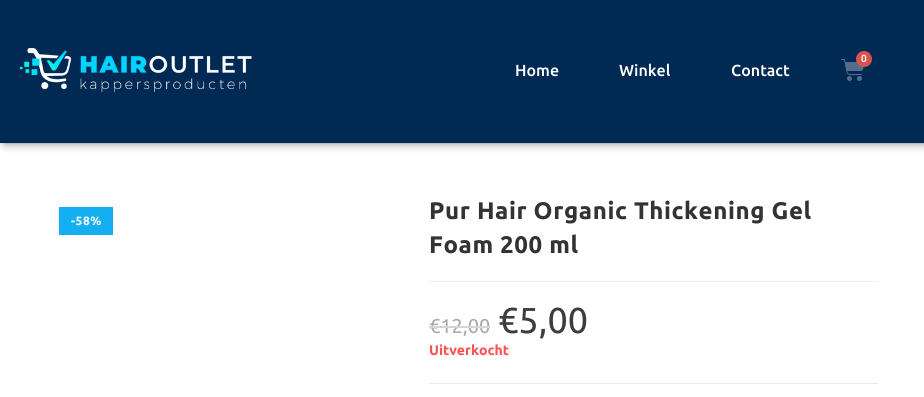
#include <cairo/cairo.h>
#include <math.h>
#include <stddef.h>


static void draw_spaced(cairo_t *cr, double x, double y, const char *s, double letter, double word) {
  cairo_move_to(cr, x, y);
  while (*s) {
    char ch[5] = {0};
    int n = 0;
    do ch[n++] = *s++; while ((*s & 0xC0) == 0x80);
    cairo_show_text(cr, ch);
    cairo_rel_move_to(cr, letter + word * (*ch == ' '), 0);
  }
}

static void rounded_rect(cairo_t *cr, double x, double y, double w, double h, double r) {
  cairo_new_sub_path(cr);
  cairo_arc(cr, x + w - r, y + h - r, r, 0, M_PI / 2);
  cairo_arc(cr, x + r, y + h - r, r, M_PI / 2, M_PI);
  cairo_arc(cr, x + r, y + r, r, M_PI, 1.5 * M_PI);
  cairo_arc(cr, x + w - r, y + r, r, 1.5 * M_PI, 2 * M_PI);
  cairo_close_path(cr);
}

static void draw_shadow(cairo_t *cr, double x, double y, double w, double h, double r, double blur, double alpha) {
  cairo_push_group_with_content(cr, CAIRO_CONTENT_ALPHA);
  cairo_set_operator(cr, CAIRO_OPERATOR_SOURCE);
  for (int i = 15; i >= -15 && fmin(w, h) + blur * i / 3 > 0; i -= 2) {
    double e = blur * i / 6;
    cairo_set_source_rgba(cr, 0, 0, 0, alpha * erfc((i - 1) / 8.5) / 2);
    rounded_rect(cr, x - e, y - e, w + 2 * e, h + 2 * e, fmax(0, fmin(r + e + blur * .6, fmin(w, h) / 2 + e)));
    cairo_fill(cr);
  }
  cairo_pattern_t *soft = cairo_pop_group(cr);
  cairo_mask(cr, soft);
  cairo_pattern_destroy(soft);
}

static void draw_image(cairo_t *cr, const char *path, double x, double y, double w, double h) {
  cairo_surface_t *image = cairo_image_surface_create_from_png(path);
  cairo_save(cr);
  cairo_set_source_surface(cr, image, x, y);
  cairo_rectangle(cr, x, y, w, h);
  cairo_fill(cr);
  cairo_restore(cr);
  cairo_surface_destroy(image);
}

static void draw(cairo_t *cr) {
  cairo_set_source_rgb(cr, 1, 1, 1);
  cairo_paint(cr);
  cairo_set_source_rgb(cr, 241 / 255.0, 241 / 255.0, 241 / 255.0);
  cairo_rectangle(cr, 0, 143, 924, 1);
  cairo_fill(cr);
  cairo_set_source_rgb(cr, 0, 0, 0);
  draw_shadow(cr, 5, 0, 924, 143, 0, 5, 0.5);
  cairo_set_source_rgb(cr, 0, 41 / 255.0, 83 / 255.0);
  cairo_rectangle(cr, 0, 0, 924, 143);
  cairo_fill(cr);
  draw_image(cr, "images/1.png", 20, 48, 232, 44);
  draw_image(cr, "images/2.png", 841, 59, 23, 22);
  cairo_set_source_rgb(cr, 217 / 255.0, 83 / 255.0, 79 / 255.0);
  cairo_arc(cr, 864, 59, 8, 0, 2 * M_PI);
  cairo_fill(cr);
  cairo_set_source_rgb(cr, 19 / 255.0, 175 / 255.0, 240 / 255.0);
  cairo_rectangle(cr, 59, 207, 54, 28);
  cairo_fill(cr);
  cairo_set_source_rgb(cr, 241 / 255.0, 241 / 255.0, 241 / 255.0);
  cairo_rectangle(cr, 429, 281, 449, 1);
  cairo_fill(cr);
  cairo_set_source_rgb(cr, 234 / 255.0, 234 / 255.0, 234 / 255.0);
  cairo_rectangle(cr, 429, 383, 449, 1);
  cairo_fill(cr);
  cairo_select_font_face(cr, "Roboto SemiBold", CAIRO_FONT_SLANT_NORMAL, CAIRO_FONT_WEIGHT_NORMAL);
  cairo_set_font_size(cr, 10);
  cairo_set_source_rgb(cr, 1, 1, 1);
  cairo_move_to(cr, 861, 62);
  cairo_show_text(cr, "0");
  cairo_select_font_face(cr, "Ubuntu Medium", CAIRO_FONT_SLANT_NORMAL, CAIRO_FONT_WEIGHT_NORMAL);
  cairo_set_font_size(cr, 16);
  cairo_move_to(cr, 515, 76);
  cairo_show_text(cr, "Home");
  cairo_move_to(cr, 619, 76);
  cairo_show_text(cr, "Winkel");
  cairo_move_to(cr, 731, 76);
  cairo_show_text(cr, "Contact");
  cairo_select_font_face(cr, "Ubuntu", CAIRO_FONT_SLANT_NORMAL, CAIRO_FONT_WEIGHT_BOLD);
  cairo_set_font_size(cr, 12);
  draw_spaced(cr, 71, 225, "-58%", 0.5, 0);
  cairo_set_font_size(cr, 24);
  cairo_set_source_rgb(cr, 51 / 255.0, 51 / 255.0, 51 / 255.0);
  draw_spaced(cr, 429, 219, "Pur Hair Organic Thickening Gel", 0.6, 0);
  draw_spaced(cr, 429, 253, "Foam 200 ml", 0.6, 0);
  cairo_select_font_face(cr, "Ubuntu", CAIRO_FONT_SLANT_NORMAL, CAIRO_FONT_WEIGHT_NORMAL);
  cairo_set_font_size(cr, 20);
  cairo_set_source_rgb(cr, 170 / 255.0, 170 / 255.0, 170 / 255.0);
  cairo_move_to(cr, 429, 333);
  cairo_show_text(cr, "€12,00");
  cairo_set_source_rgb(cr, 213 / 255.0, 213 / 255.0, 213 / 255.0);
  cairo_rectangle(cr, 429, 326, 61, 2);
  cairo_fill(cr);
  cairo_set_font_size(cr, 36);
  cairo_set_source_rgb(cr, 61 / 255.0, 61 / 255.0, 61 / 255.0);
  cairo_move_to(cr, 498, 333);
  cairo_show_text(cr, "€5,00");
  cairo_select_font_face(cr, "Ubuntu", CAIRO_FONT_SLANT_NORMAL, CAIRO_FONT_WEIGHT_BOLD);
  cairo_set_font_size(cr, 14);
  cairo_set_source_rgb(cr, 254 / 255.0, 82 / 255.0, 82 / 255.0);
  cairo_move_to(cr, 429, 355);
  cairo_show_text(cr, "Uitverkocht");
}

int main(void) {
  cairo_surface_t *surface = cairo_image_surface_create(CAIRO_FORMAT_RGB24, 924, 397);
  cairo_t *cr = cairo_create(surface);
  cairo_font_options_t *options = cairo_font_options_create();
  cairo_font_options_set_hint_metrics(options, CAIRO_HINT_METRICS_OFF);
  cairo_font_options_set_hint_style(options, CAIRO_HINT_STYLE_NONE);
  cairo_set_font_options(cr, options);
  cairo_set_miter_limit(cr, 4);
  draw(cr);
  cairo_surface_write_to_png(surface, "out.png");
  cairo_font_options_destroy(options);
  cairo_destroy(cr);
  cairo_surface_destroy(surface);
  return 0;
}
